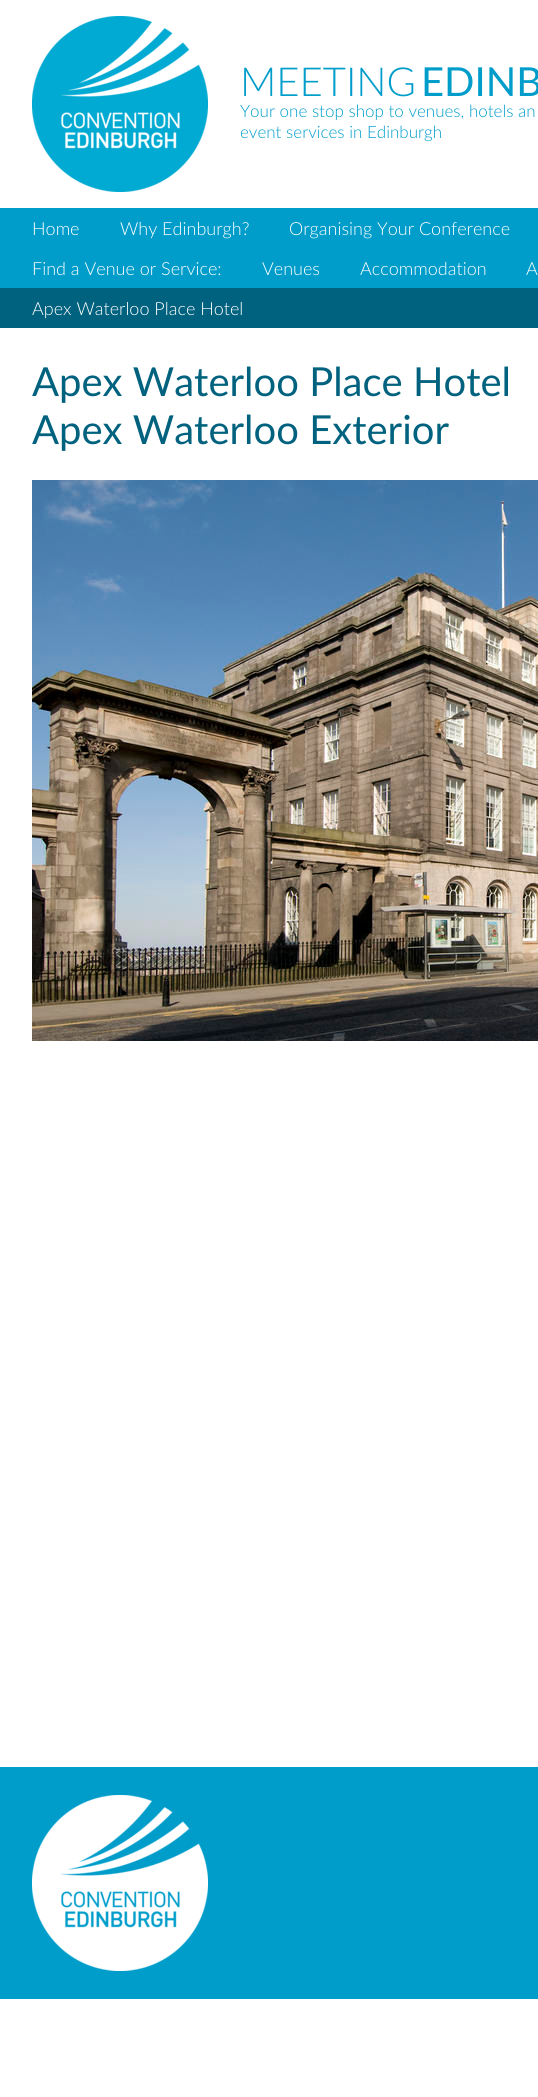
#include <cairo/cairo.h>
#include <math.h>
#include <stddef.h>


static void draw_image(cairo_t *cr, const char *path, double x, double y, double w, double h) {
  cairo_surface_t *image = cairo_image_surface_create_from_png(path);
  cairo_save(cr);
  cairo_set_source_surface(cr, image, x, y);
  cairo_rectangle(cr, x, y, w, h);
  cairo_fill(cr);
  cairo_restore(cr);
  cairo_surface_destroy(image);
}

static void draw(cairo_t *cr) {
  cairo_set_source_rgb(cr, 1, 1, 1);
  cairo_paint(cr);
  draw_image(cr, "images/1.png", 32, 16, 176, 176);
  cairo_set_source_rgb(cr, 0, 157 / 255.0, 203 / 255.0);
  cairo_rectangle(cr, 0, 208, 538, 80);
  cairo_fill(cr);
  cairo_set_source_rgb(cr, 0, 98 / 255.0, 126 / 255.0);
  cairo_rectangle(cr, 0, 288, 538, 40);
  cairo_fill(cr);
  draw_image(cr, "images/2.png", 32, 480, 506, 561);
  cairo_set_source_rgb(cr, 0, 157 / 255.0, 203 / 255.0);
  cairo_rectangle(cr, 0, 1767, 538, 232);
  cairo_fill(cr);
  draw_image(cr, "images/3.png", 32, 1795, 176, 176);
  cairo_select_font_face(cr, "Lato Light", CAIRO_FONT_SLANT_NORMAL, CAIRO_FONT_WEIGHT_NORMAL);
  cairo_set_font_size(cr, 40);
  cairo_move_to(cr, 240, 96);
  cairo_show_text(cr, "MEETING");
  cairo_select_font_face(cr, "Lato", CAIRO_FONT_SLANT_NORMAL, CAIRO_FONT_WEIGHT_NORMAL);
  cairo_move_to(cr, 421, 96);
  cairo_show_text(cr, "EDINB");
  cairo_select_font_face(cr, "Lato Light", CAIRO_FONT_SLANT_NORMAL, CAIRO_FONT_WEIGHT_NORMAL);
  cairo_set_font_size(cr, 17);
  cairo_move_to(cr, 240, 117);
  cairo_show_text(cr, "Your one stop shop to venues, hotels an");
  cairo_move_to(cr, 240, 138);
  cairo_show_text(cr, "event services in Edinburgh");
  cairo_set_font_size(cr, 18);
  cairo_set_source_rgb(cr, 1, 1, 1);
  cairo_move_to(cr, 32, 235);
  cairo_show_text(cr, "Home");
  cairo_move_to(cr, 120, 235);
  cairo_show_text(cr, "Why Edinburgh?");
  cairo_move_to(cr, 289, 235);
  cairo_show_text(cr, "Organising Your Conference");
  cairo_move_to(cr, 32, 275);
  cairo_show_text(cr, "Find a Venue or Service:");
  cairo_move_to(cr, 262, 275);
  cairo_show_text(cr, "Venues");
  cairo_move_to(cr, 360, 275);
  cairo_show_text(cr, "Accommodation");
  cairo_move_to(cr, 526, 275);
  cairo_show_text(cr, "A");
  cairo_move_to(cr, 32, 315);
  cairo_show_text(cr, "Apex Waterloo Place Hotel");
  cairo_select_font_face(cr, "Lato", CAIRO_FONT_SLANT_NORMAL, CAIRO_FONT_WEIGHT_NORMAL);
  cairo_set_font_size(cr, 40);
  cairo_set_source_rgb(cr, 0, 98 / 255.0, 126 / 255.0);
  cairo_move_to(cr, 32, 396);
  cairo_show_text(cr, "Apex Waterloo Place Hotel");
  cairo_move_to(cr, 32, 444);
  cairo_show_text(cr, "Apex Waterloo Exterior");
}

int main(void) {
  cairo_surface_t *surface = cairo_image_surface_create(CAIRO_FORMAT_RGB24, 538, 2097);
  cairo_t *cr = cairo_create(surface);
  cairo_font_options_t *options = cairo_font_options_create();
  cairo_font_options_set_hint_metrics(options, CAIRO_HINT_METRICS_OFF);
  cairo_font_options_set_hint_style(options, CAIRO_HINT_STYLE_NONE);
  cairo_set_font_options(cr, options);
  cairo_set_miter_limit(cr, 4);
  draw(cr);
  cairo_surface_write_to_png(surface, "out.png");
  cairo_font_options_destroy(options);
  cairo_destroy(cr);
  cairo_surface_destroy(surface);
  return 0;
}
